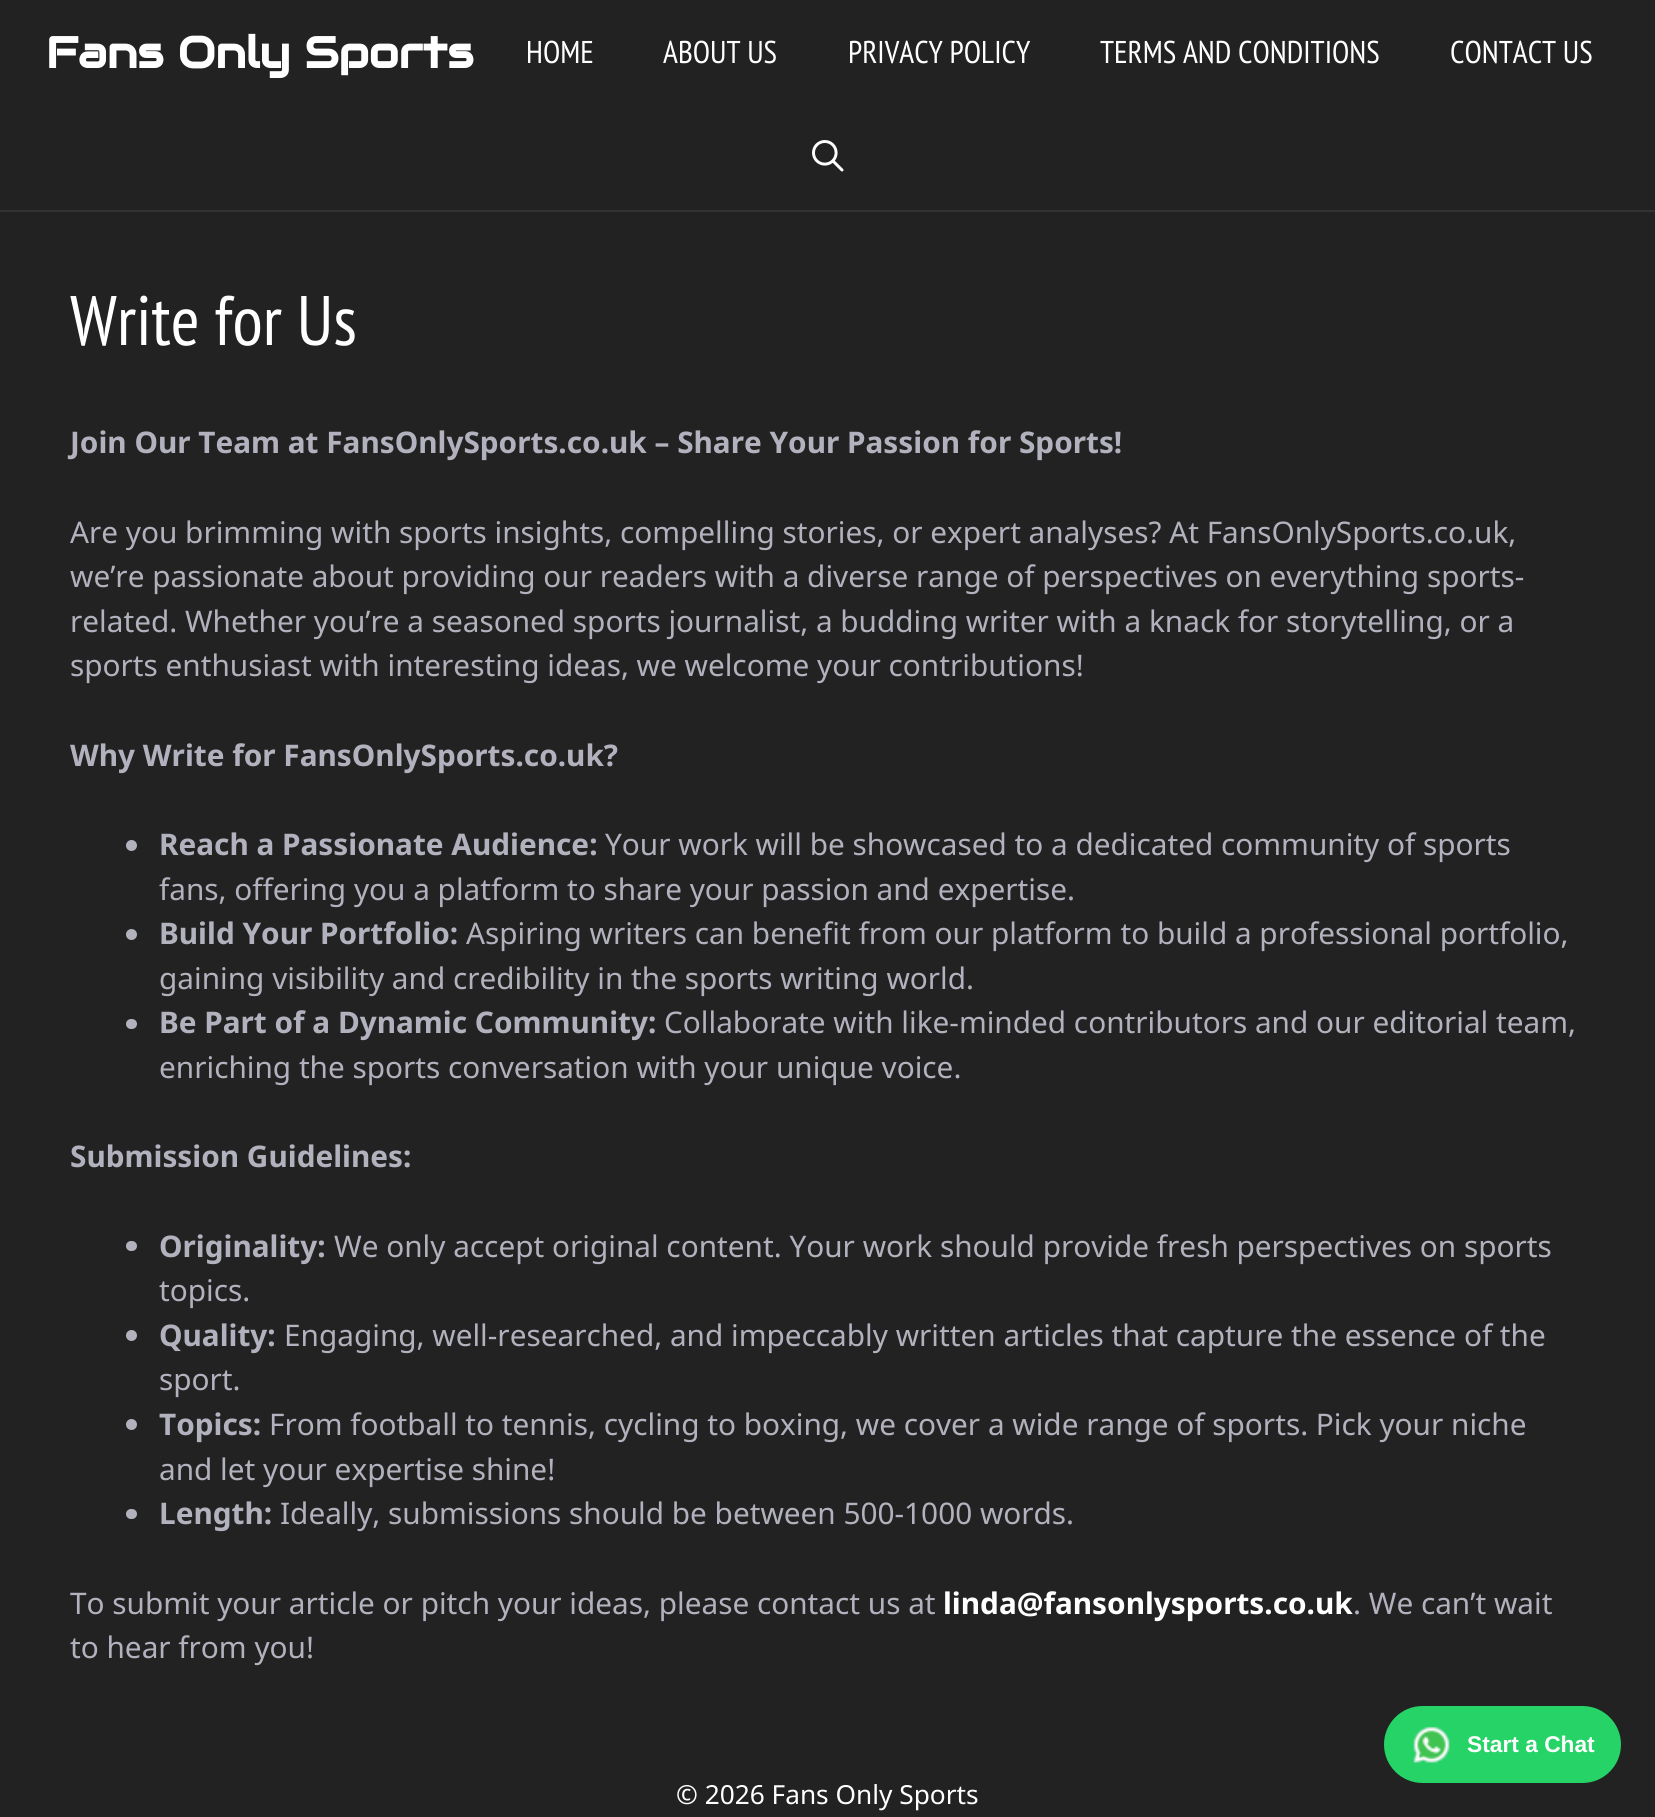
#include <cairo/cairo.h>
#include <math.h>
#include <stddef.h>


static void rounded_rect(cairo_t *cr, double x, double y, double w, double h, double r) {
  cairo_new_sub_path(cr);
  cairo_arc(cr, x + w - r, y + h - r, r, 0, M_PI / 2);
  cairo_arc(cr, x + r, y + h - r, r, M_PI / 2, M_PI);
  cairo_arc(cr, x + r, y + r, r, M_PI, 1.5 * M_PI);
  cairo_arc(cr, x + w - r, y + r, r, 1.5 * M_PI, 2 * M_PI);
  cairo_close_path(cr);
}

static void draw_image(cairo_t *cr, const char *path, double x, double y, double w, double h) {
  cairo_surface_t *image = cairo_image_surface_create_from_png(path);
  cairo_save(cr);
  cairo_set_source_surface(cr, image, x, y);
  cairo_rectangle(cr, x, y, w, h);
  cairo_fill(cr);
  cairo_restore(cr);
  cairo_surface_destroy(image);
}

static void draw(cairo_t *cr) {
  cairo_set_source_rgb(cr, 34 / 255.0, 34 / 255.0, 34 / 255.0);
  cairo_paint(cr);
  cairo_set_source_rgb(cr, 51 / 255.0, 51 / 255.0, 51 / 255.0);
  cairo_new_path(cr);
  cairo_move_to(cr, 0, 210);
  cairo_line_to(cr, 0, 212);
  cairo_line_to(cr, 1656, 212);
  cairo_line_to(cr, 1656, 2);
  cairo_line_to(cr, 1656, 210);
  cairo_close_path(cr);
  cairo_fill(cr);
  draw_image(cr, "images/1.png", 812, 140, 32, 32);
  cairo_set_source_rgb(cr, 178 / 255.0, 178 / 255.0, 190 / 255.0);
  cairo_arc(cr, 131.5, 845.5, 5.5, 0, 2 * M_PI);
  cairo_fill(cr);
  cairo_arc(cr, 131.5, 934.5, 5.5, 0, 2 * M_PI);
  cairo_fill(cr);
  rounded_rect(cr, 126, 1019, 11, 10, 5);
  cairo_fill(cr);
  rounded_rect(cr, 126, 1241, 11, 10, 5);
  cairo_fill(cr);
  cairo_arc(cr, 131.5, 1335.5, 5.5, 0, 2 * M_PI);
  cairo_fill(cr);
  cairo_arc(cr, 131.5, 1424.5, 5.5, 0, 2 * M_PI);
  cairo_fill(cr);
  rounded_rect(cr, 126, 1509, 11, 10, 5);
  cairo_fill(cr);
  cairo_set_source_rgb(cr, 37 / 255.0, 211 / 255.0, 102 / 255.0);
  rounded_rect(cr, 1384, 1706, 237, 77, 38.5);
  cairo_fill(cr);
  draw_image(cr, "images/2.png", 1413, 1726, 37, 38);
  cairo_select_font_face(cr, "Audiowide", CAIRO_FONT_SLANT_NORMAL, CAIRO_FONT_WEIGHT_BOLD);
  cairo_set_font_size(cr, 43.75);
  cairo_set_source_rgb(cr, 1, 1, 1);
  cairo_move_to(cr, 46, 68);
  cairo_show_text(cr, "Fans Only Sports");
  cairo_select_font_face(cr, "PT Sans Narrow", CAIRO_FONT_SLANT_NORMAL, CAIRO_FONT_WEIGHT_NORMAL);
  cairo_set_font_size(cr, 31.5);
  cairo_move_to(cr, 526, 63);
  cairo_show_text(cr, "HOME");
  cairo_move_to(cr, 663, 63);
  cairo_show_text(cr, "ABOUT US");
  cairo_move_to(cr, 848, 63);
  cairo_show_text(cr, "PRIVACY POLICY");
  cairo_move_to(cr, 1100, 63);
  cairo_show_text(cr, "TERMS AND CONDITIONS");
  cairo_move_to(cr, 1450, 63);
  cairo_show_text(cr, "CONTACT US");
  cairo_set_font_size(cr, 70);
  cairo_move_to(cr, 70, 345);
  cairo_show_text(cr, "Write for Us");
  cairo_select_font_face(cr, "Noto Sans", CAIRO_FONT_SLANT_NORMAL, CAIRO_FONT_WEIGHT_BOLD);
  cairo_set_font_size(cr, 29.75);
  cairo_set_source_rgb(cr, 178 / 255.0, 178 / 255.0, 190 / 255.0);
  cairo_move_to(cr, 70, 453);
  cairo_show_text(cr, "Join Our Team at FansOnlySports.co.uk – Share Your Passion for Sports!");
  cairo_select_font_face(cr, "Noto Sans", CAIRO_FONT_SLANT_NORMAL, CAIRO_FONT_WEIGHT_NORMAL);
  cairo_move_to(cr, 70, 543);
  cairo_show_text(cr, "Are you brimming with sports insights, compelling stories, or expert analyses? At FansOnlySports.co.uk,");
  cairo_move_to(cr, 70, 587);
  cairo_show_text(cr, "we’re passionate about providing our readers with a diverse range of perspectives on everything sports-");
  cairo_move_to(cr, 70, 632);
  cairo_show_text(cr, "related. Whether you’re a seasoned sports journalist, a budding writer with a knack for storytelling, or a");
  cairo_move_to(cr, 70, 676);
  cairo_show_text(cr, "sports enthusiast with interesting ideas, we welcome your contributions!");
  cairo_select_font_face(cr, "Noto Sans", CAIRO_FONT_SLANT_NORMAL, CAIRO_FONT_WEIGHT_BOLD);
  cairo_move_to(cr, 70, 766);
  cairo_show_text(cr, "Why Write for FansOnlySports.co.uk?");
  cairo_move_to(cr, 159, 855);
  cairo_show_text(cr, "Reach a Passionate Audience:");
  cairo_select_font_face(cr, "Noto Sans", CAIRO_FONT_SLANT_NORMAL, CAIRO_FONT_WEIGHT_NORMAL);
  cairo_move_to(cr, 605, 855);
  cairo_show_text(cr, "Your work will be showcased to a dedicated community of sports");
  cairo_move_to(cr, 159, 900);
  cairo_show_text(cr, "fans, offering you a platform to share your passion and expertise.");
  cairo_select_font_face(cr, "Noto Sans", CAIRO_FONT_SLANT_NORMAL, CAIRO_FONT_WEIGHT_BOLD);
  cairo_move_to(cr, 159, 944);
  cairo_show_text(cr, "Build Your Portfolio:");
  cairo_select_font_face(cr, "Noto Sans", CAIRO_FONT_SLANT_NORMAL, CAIRO_FONT_WEIGHT_NORMAL);
  cairo_move_to(cr, 466, 944);
  cairo_show_text(cr, "Aspiring writers can benefit from our platform to build a professional portfolio,");
  cairo_move_to(cr, 159, 989);
  cairo_show_text(cr, "gaining visibility and credibility in the sports writing world.");
  cairo_select_font_face(cr, "Noto Sans", CAIRO_FONT_SLANT_NORMAL, CAIRO_FONT_WEIGHT_BOLD);
  cairo_move_to(cr, 159, 1033);
  cairo_show_text(cr, "Be Part of a Dynamic Community:");
  cairo_select_font_face(cr, "Noto Sans", CAIRO_FONT_SLANT_NORMAL, CAIRO_FONT_WEIGHT_NORMAL);
  cairo_move_to(cr, 664, 1033);
  cairo_show_text(cr, "Collaborate with like-minded contributors and our editorial team,");
  cairo_move_to(cr, 159, 1078);
  cairo_show_text(cr, "enriching the sports conversation with your unique voice.");
  cairo_select_font_face(cr, "Noto Sans", CAIRO_FONT_SLANT_NORMAL, CAIRO_FONT_WEIGHT_BOLD);
  cairo_move_to(cr, 70, 1167);
  cairo_show_text(cr, "Submission Guidelines:");
  cairo_move_to(cr, 159, 1257);
  cairo_show_text(cr, "Originality:");
  cairo_select_font_face(cr, "Noto Sans", CAIRO_FONT_SLANT_NORMAL, CAIRO_FONT_WEIGHT_NORMAL);
  cairo_move_to(cr, 334, 1257);
  cairo_show_text(cr, "We only accept original content. Your work should provide fresh perspectives on sports");
  cairo_move_to(cr, 159, 1301);
  cairo_show_text(cr, "topics.");
  cairo_select_font_face(cr, "Noto Sans", CAIRO_FONT_SLANT_NORMAL, CAIRO_FONT_WEIGHT_BOLD);
  cairo_move_to(cr, 159, 1346);
  cairo_show_text(cr, "Quality:");
  cairo_select_font_face(cr, "Noto Sans", CAIRO_FONT_SLANT_NORMAL, CAIRO_FONT_WEIGHT_NORMAL);
  cairo_move_to(cr, 284, 1346);
  cairo_show_text(cr, "Engaging, well-researched, and impeccably written articles that capture the essence of the");
  cairo_move_to(cr, 159, 1390);
  cairo_show_text(cr, "sport.");
  cairo_select_font_face(cr, "Noto Sans", CAIRO_FONT_SLANT_NORMAL, CAIRO_FONT_WEIGHT_BOLD);
  cairo_move_to(cr, 159, 1435);
  cairo_show_text(cr, "Topics:");
  cairo_select_font_face(cr, "Noto Sans", CAIRO_FONT_SLANT_NORMAL, CAIRO_FONT_WEIGHT_NORMAL);
  cairo_move_to(cr, 269, 1435);
  cairo_show_text(cr, "From football to tennis, cycling to boxing, we cover a wide range of sports. Pick your niche");
  cairo_move_to(cr, 159, 1480);
  cairo_show_text(cr, "and let your expertise shine!");
  cairo_select_font_face(cr, "Noto Sans", CAIRO_FONT_SLANT_NORMAL, CAIRO_FONT_WEIGHT_BOLD);
  cairo_move_to(cr, 159, 1524);
  cairo_show_text(cr, "Length:");
  cairo_select_font_face(cr, "Noto Sans", CAIRO_FONT_SLANT_NORMAL, CAIRO_FONT_WEIGHT_NORMAL);
  cairo_move_to(cr, 280, 1524);
  cairo_show_text(cr, "Ideally, submissions should be between 500-1000 words.");
  cairo_move_to(cr, 70, 1614);
  cairo_show_text(cr, "To submit your article or pitch your ideas, please contact us at");
  cairo_select_font_face(cr, "Noto Sans", CAIRO_FONT_SLANT_NORMAL, CAIRO_FONT_WEIGHT_BOLD);
  cairo_set_source_rgb(cr, 1, 1, 1);
  cairo_move_to(cr, 943, 1614);
  cairo_show_text(cr, "linda@fansonlysports.co.uk");
  cairo_select_font_face(cr, "Noto Sans", CAIRO_FONT_SLANT_NORMAL, CAIRO_FONT_WEIGHT_NORMAL);
  cairo_set_source_rgb(cr, 178 / 255.0, 178 / 255.0, 190 / 255.0);
  cairo_move_to(cr, 1353, 1614);
  cairo_show_text(cr, ". We can’t wait");
  cairo_move_to(cr, 70, 1658);
  cairo_show_text(cr, "to hear from you!");
  cairo_select_font_face(cr, "Liberation Sans", CAIRO_FONT_SLANT_NORMAL, CAIRO_FONT_WEIGHT_BOLD);
  cairo_set_font_size(cr, 22.75);
  cairo_set_source_rgb(cr, 1, 1, 1);
  cairo_move_to(cr, 1467, 1752);
  cairo_show_text(cr, "Start a Chat");
  cairo_select_font_face(cr, "Noto Sans", CAIRO_FONT_SLANT_NORMAL, CAIRO_FONT_WEIGHT_NORMAL);
  cairo_set_font_size(cr, 26.25);
  cairo_move_to(cr, 676, 1804);
  cairo_show_text(cr, "© 2026 Fans Only Sports");
}

int main(void) {
  cairo_surface_t *surface = cairo_image_surface_create(CAIRO_FORMAT_RGB24, 1655, 1817);
  cairo_t *cr = cairo_create(surface);
  cairo_font_options_t *options = cairo_font_options_create();
  cairo_font_options_set_hint_metrics(options, CAIRO_HINT_METRICS_OFF);
  cairo_font_options_set_hint_style(options, CAIRO_HINT_STYLE_NONE);
  cairo_set_font_options(cr, options);
  cairo_set_miter_limit(cr, 4);
  draw(cr);
  cairo_surface_write_to_png(surface, "out.png");
  cairo_font_options_destroy(options);
  cairo_destroy(cr);
  cairo_surface_destroy(surface);
  return 0;
}
